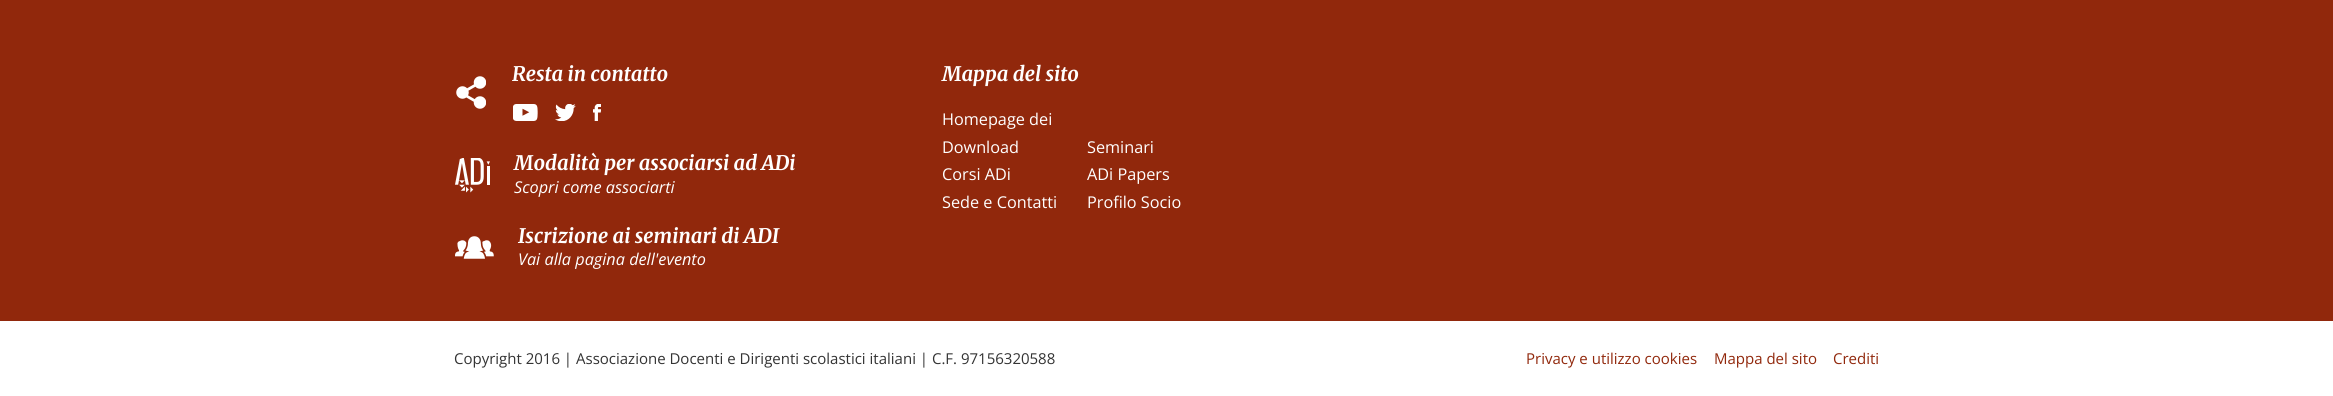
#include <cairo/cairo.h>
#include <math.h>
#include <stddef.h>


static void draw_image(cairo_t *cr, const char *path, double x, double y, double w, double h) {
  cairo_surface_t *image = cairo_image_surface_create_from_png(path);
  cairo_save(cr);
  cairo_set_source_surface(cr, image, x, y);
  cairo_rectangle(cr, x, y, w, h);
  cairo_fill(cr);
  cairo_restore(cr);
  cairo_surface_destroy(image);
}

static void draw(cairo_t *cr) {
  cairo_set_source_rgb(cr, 145 / 255.0, 40 / 255.0, 12 / 255.0);
  cairo_paint(cr);
  draw_image(cr, "images/1.png", 456, 76, 30, 33);
  draw_image(cr, "images/2.png", 513, 104, 25, 17);
  draw_image(cr, "images/3.png", 555, 104, 21, 17);
  draw_image(cr, "images/4.png", 593, 104, 8, 17);
  draw_image(cr, "images/5.png", 455, 158, 35, 35);
  draw_image(cr, "images/6.png", 455, 236, 39, 23);
  cairo_set_source_rgb(cr, 1, 1, 1);
  cairo_rectangle(cr, 0, 321, 2333, 75);
  cairo_fill(cr);
  cairo_select_font_face(cr, "Merriweather", CAIRO_FONT_SLANT_ITALIC, CAIRO_FONT_WEIGHT_BOLD);
  cairo_set_font_size(cr, 20);
  cairo_move_to(cr, 512, 81);
  cairo_show_text(cr, "Resta in contatto");
  cairo_move_to(cr, 514, 170);
  cairo_show_text(cr, "Modalità per associarsi ad ADi");
  cairo_select_font_face(cr, "Open Sans", CAIRO_FONT_SLANT_ITALIC, CAIRO_FONT_WEIGHT_NORMAL);
  cairo_set_font_size(cr, 16.25);
  cairo_move_to(cr, 514, 193);
  cairo_show_text(cr, "Scopri come associarti");
  cairo_select_font_face(cr, "Merriweather", CAIRO_FONT_SLANT_ITALIC, CAIRO_FONT_WEIGHT_BOLD);
  cairo_set_font_size(cr, 20);
  cairo_move_to(cr, 518, 243);
  cairo_show_text(cr, "Iscrizione ai seminari di ADI");
  cairo_select_font_face(cr, "Open Sans", CAIRO_FONT_SLANT_ITALIC, CAIRO_FONT_WEIGHT_NORMAL);
  cairo_set_font_size(cr, 16.25);
  cairo_move_to(cr, 518, 265);
  cairo_show_text(cr, "Vai alla pagina dell'evento");
  cairo_select_font_face(cr, "Merriweather", CAIRO_FONT_SLANT_ITALIC, CAIRO_FONT_WEIGHT_BOLD);
  cairo_set_font_size(cr, 20);
  cairo_move_to(cr, 942, 81);
  cairo_show_text(cr, "Mappa del sito");
  cairo_select_font_face(cr, "Open Sans", CAIRO_FONT_SLANT_NORMAL, CAIRO_FONT_WEIGHT_NORMAL);
  cairo_set_font_size(cr, 16.25);
  cairo_move_to(cr, 942, 125);
  cairo_show_text(cr, "Homepage dei");
  cairo_move_to(cr, 942, 153);
  cairo_show_text(cr, "Download");
  cairo_move_to(cr, 1087, 153);
  cairo_show_text(cr, "Seminari");
  cairo_move_to(cr, 942, 180);
  cairo_show_text(cr, "Corsi ADi");
  cairo_move_to(cr, 1087, 180);
  cairo_show_text(cr, "ADi Papers");
  cairo_move_to(cr, 942, 208);
  cairo_show_text(cr, "Sede e Contatti");
  cairo_move_to(cr, 1087, 208);
  cairo_show_text(cr, "Profilo Socio");
  cairo_set_font_size(cr, 15);
  cairo_set_source_rgb(cr, 51 / 255.0, 51 / 255.0, 51 / 255.0);
  cairo_move_to(cr, 454, 364);
  cairo_show_text(cr, "Copyright 2016 | Associazione Docenti e Dirigenti scolastici italiani | C.F. 97156320588");
  cairo_set_source_rgb(cr, 145 / 255.0, 40 / 255.0, 12 / 255.0);
  cairo_move_to(cr, 1526, 364);
  cairo_show_text(cr, "Privacy e utilizzo cookies");
  cairo_move_to(cr, 1714, 364);
  cairo_show_text(cr, "Mappa del sito");
  cairo_move_to(cr, 1833, 364);
  cairo_show_text(cr, "Crediti");
}

int main(void) {
  cairo_surface_t *surface = cairo_image_surface_create(CAIRO_FORMAT_RGB24, 2333, 396);
  cairo_t *cr = cairo_create(surface);
  cairo_font_options_t *options = cairo_font_options_create();
  cairo_font_options_set_hint_metrics(options, CAIRO_HINT_METRICS_OFF);
  cairo_font_options_set_hint_style(options, CAIRO_HINT_STYLE_NONE);
  cairo_set_font_options(cr, options);
  cairo_set_miter_limit(cr, 4);
  draw(cr);
  cairo_surface_write_to_png(surface, "out.png");
  cairo_font_options_destroy(options);
  cairo_destroy(cr);
  cairo_surface_destroy(surface);
  return 0;
}
